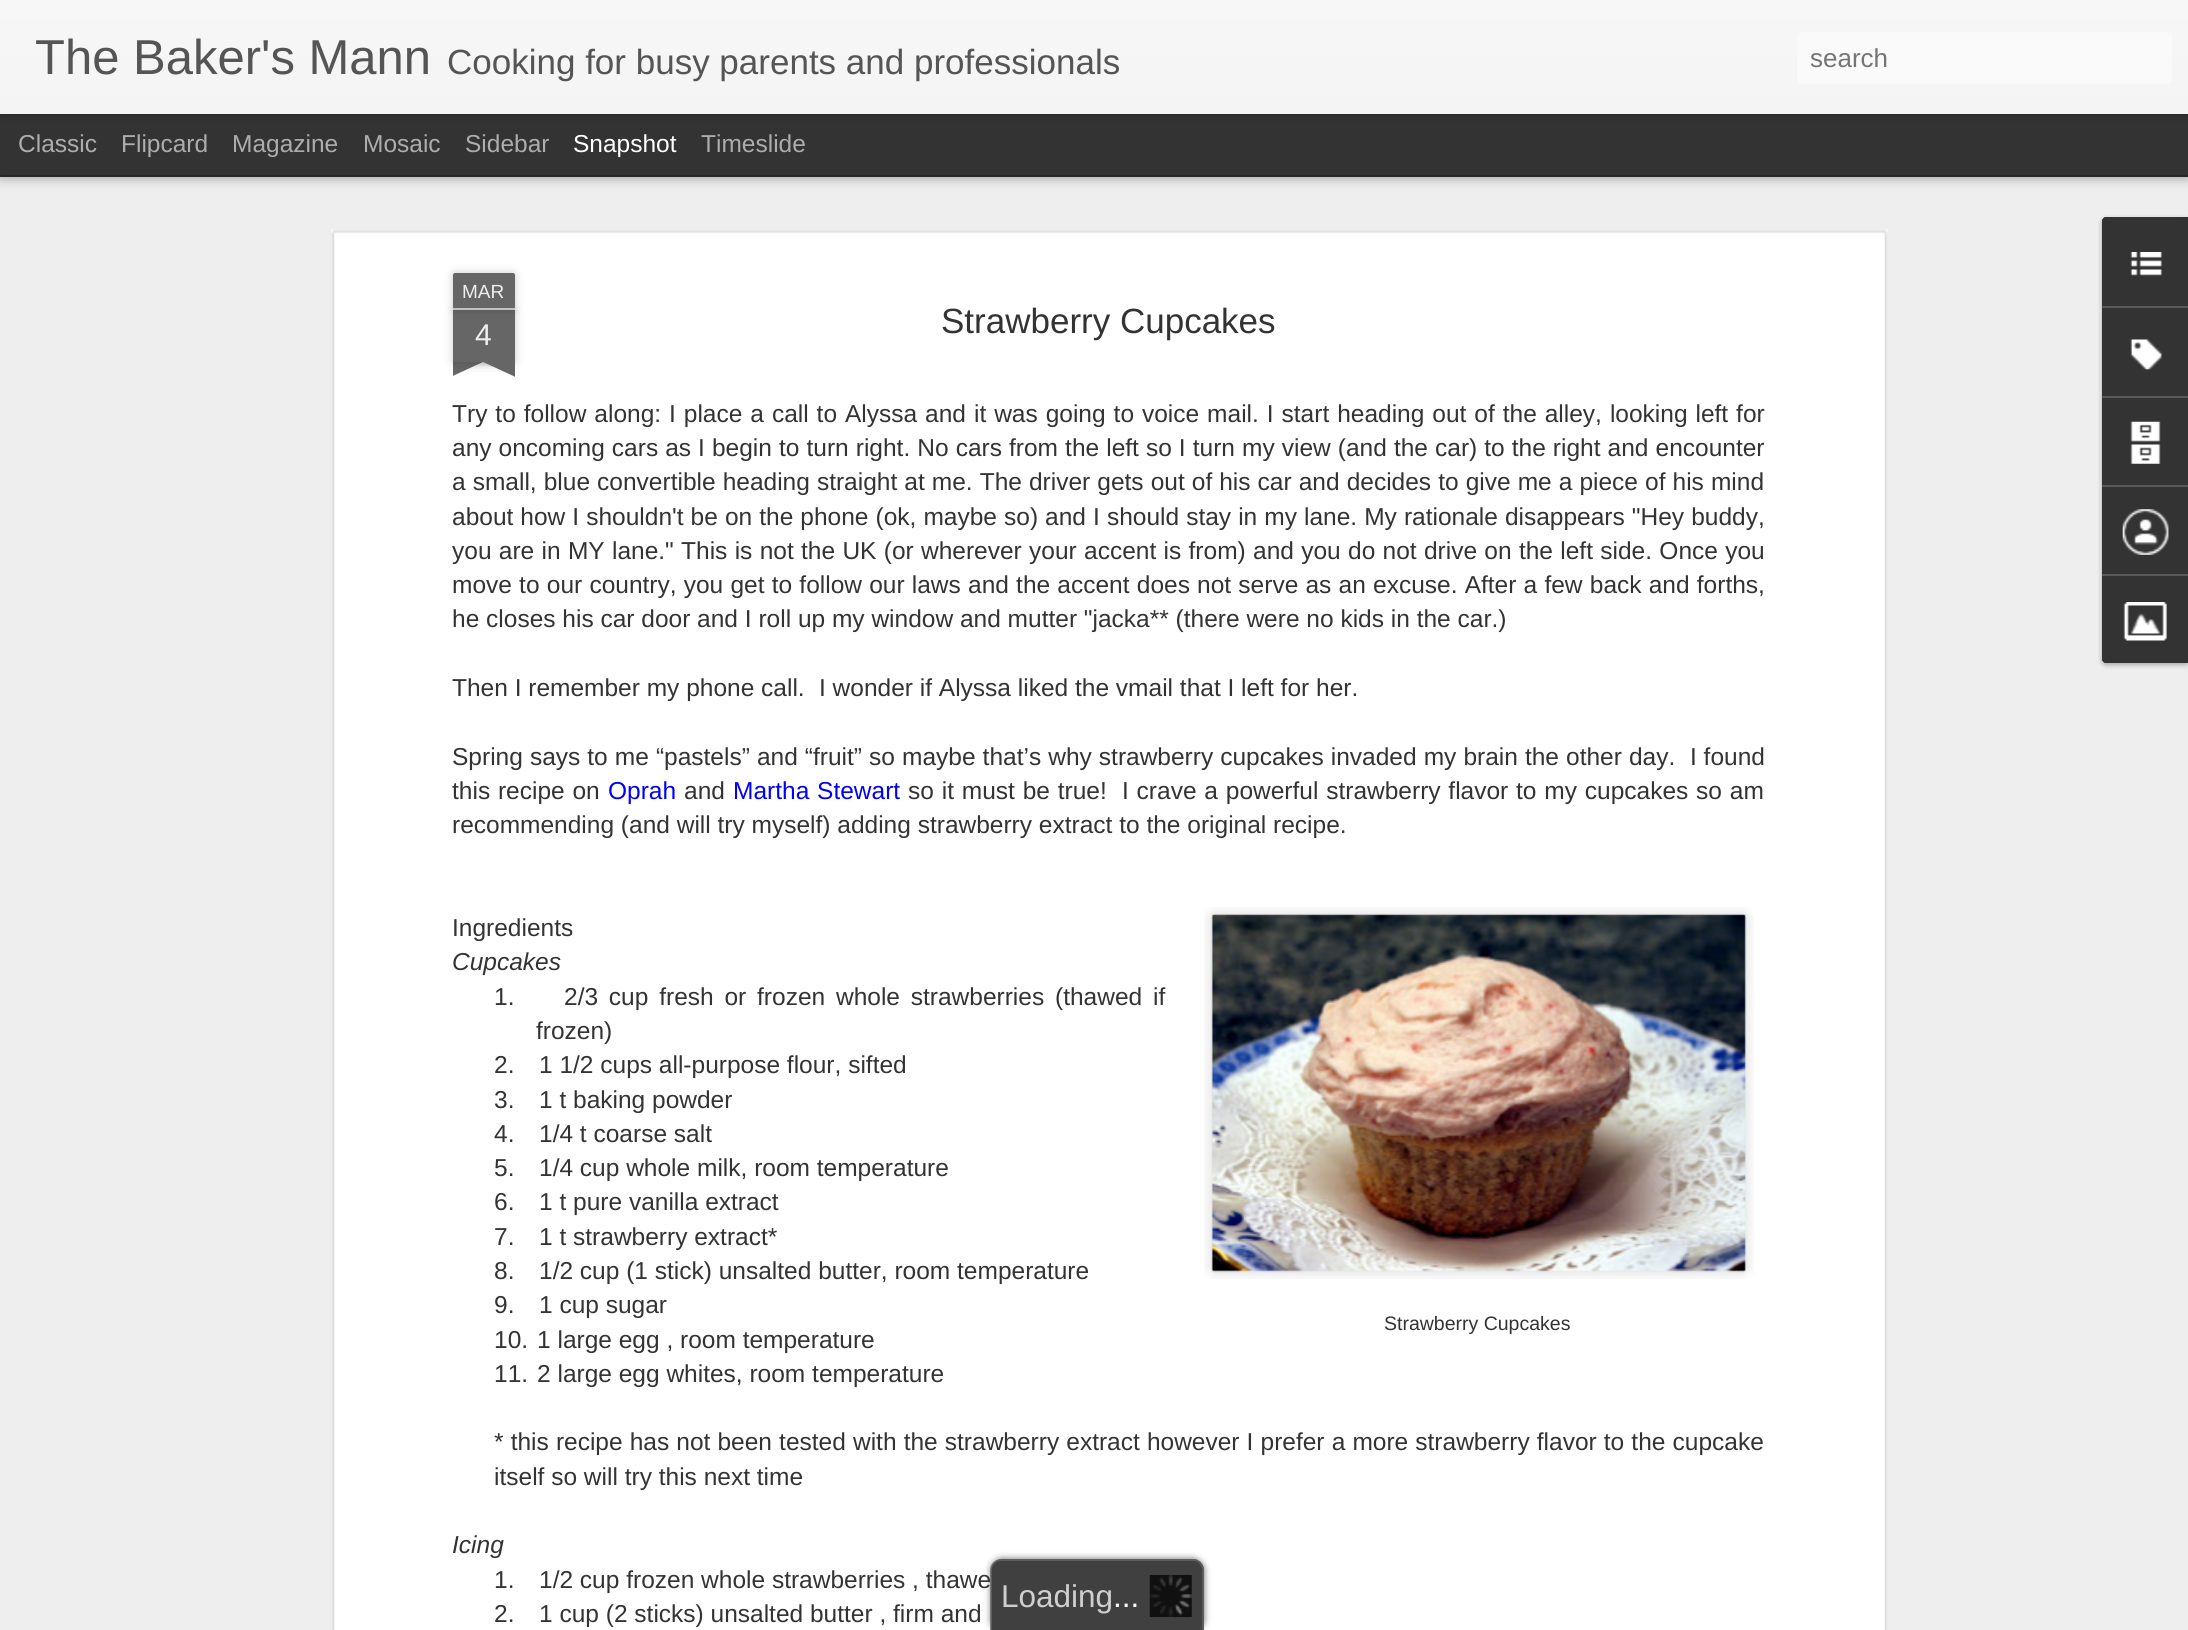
#include <cairo/cairo.h>
#include <math.h>
#include <stddef.h>


static void draw_spaced(cairo_t *cr, double x, double y, const char *s, double letter, double word) {
  cairo_move_to(cr, x, y);
  while (*s) {
    char ch[5] = {0};
    int n = 0;
    do ch[n++] = *s++; while ((*s & 0xC0) == 0x80);
    cairo_show_text(cr, ch);
    cairo_rel_move_to(cr, letter + word * (*ch == ' '), 0);
  }
}

static void rounded_rect(cairo_t *cr, double x, double y, double w, double h, double r) {
  cairo_new_sub_path(cr);
  cairo_arc(cr, x + w - r, y + h - r, r, 0, M_PI / 2);
  cairo_arc(cr, x + r, y + h - r, r, M_PI / 2, M_PI);
  cairo_arc(cr, x + r, y + r, r, M_PI, 1.5 * M_PI);
  cairo_arc(cr, x + w - r, y + r, r, 1.5 * M_PI, 2 * M_PI);
  cairo_close_path(cr);
}

static void draw_shadow(cairo_t *cr, double x, double y, double w, double h, double r, double blur, double alpha) {
  cairo_push_group_with_content(cr, CAIRO_CONTENT_ALPHA);
  cairo_set_operator(cr, CAIRO_OPERATOR_SOURCE);
  for (int i = 15; i >= -15 && fmin(w, h) + blur * i / 3 > 0; i -= 2) {
    double e = blur * i / 6;
    cairo_set_source_rgba(cr, 0, 0, 0, alpha * erfc((i - 1) / 8.5) / 2);
    rounded_rect(cr, x - e, y - e, w + 2 * e, h + 2 * e, fmax(0, fmin(r + e + blur * .6, fmin(w, h) / 2 + e)));
    cairo_fill(cr);
  }
  cairo_pattern_t *soft = cairo_pop_group(cr);
  cairo_mask(cr, soft);
  cairo_pattern_destroy(soft);
}

static void draw_image(cairo_t *cr, const char *path, double x, double y, double w, double h) {
  cairo_surface_t *image = cairo_image_surface_create_from_png(path);
  cairo_save(cr);
  cairo_set_source_surface(cr, image, x, y);
  cairo_rectangle(cr, x, y, w, h);
  cairo_fill(cr);
  cairo_restore(cr);
  cairo_surface_destroy(image);
}

static void draw(cairo_t *cr) {
  cairo_pattern_t *gradient;
  cairo_set_source_rgb(cr, 51 / 255.0, 51 / 255.0, 51 / 255.0);
  cairo_paint(cr);
  cairo_set_source_rgb(cr, 238 / 255.0, 238 / 255.0, 238 / 255.0);
  cairo_rectangle(cr, 0, 177, 2188, 1453);
  cairo_fill(cr);
  cairo_set_source_rgb(cr, 0, 0, 0);
  draw_shadow(cr, 0, 114, 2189, 61, 0, 7, 0.5);
  cairo_set_source_rgb(cr, 51 / 255.0, 51 / 255.0, 51 / 255.0);
  cairo_rectangle(cr, 0, 114, 2188, 61);
  cairo_fill(cr);
  cairo_set_source_rgb(cr, 0, 0, 0);
  draw_shadow(cr, 0, 0, 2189, 114, 0, 4.5, 0.3);
  gradient = cairo_pattern_create_linear(0, 0, 0, 114);
  cairo_pattern_add_color_stop_rgba(gradient, 0, 247 / 255.0, 247 / 255.0, 247 / 255.0, 1);
  cairo_pattern_add_color_stop_rgba(gradient, 1, 244 / 255.0, 244 / 255.0, 244 / 255.0, 1);
  cairo_set_source(cr, gradient);
  cairo_pattern_destroy(gradient);
  cairo_rectangle(cr, 0, 0, 2188, 114);
  cairo_fill(cr);
  cairo_set_source_rgb(cr, 250 / 255.0, 250 / 255.0, 250 / 255.0);
  rounded_rect(cr, 1797, 32, 375, 52, 5);
  cairo_fill(cr);
  cairo_set_source_rgb(cr, 1, 1, 1);
  cairo_rectangle(cr, 331, 229, 1557, 1401);
  cairo_fill(cr);
  draw_image(cr, "images/1.png", 331, 229, 1557, 1401);
  cairo_set_source_rgb(cr, 0, 0, 0);
  draw_shadow(cr, 453, 310, 62, 52, 0, 4.5, 0.2);
  cairo_set_source_rgb(cr, 102 / 255.0, 102 / 255.0, 102 / 255.0);
  cairo_rectangle(cr, 453, 310, 62, 52);
  cairo_fill(cr);
  cairo_set_source_rgb(cr, 0, 0, 0);
  draw_shadow(cr, 453, 273, 62, 37, 2, 4.5, 0.2);
  cairo_set_source_rgb(cr, 102 / 255.0, 102 / 255.0, 102 / 255.0);
  cairo_new_path(cr);
  cairo_move_to(cr, 455, 273);
  cairo_line_to(cr, 513, 273);
  cairo_curve_to(cr, 514, 273, 515, 274, 515, 275);
  cairo_line_to(cr, 515, 310);
  cairo_line_to(cr, 453, 310);
  cairo_line_to(cr, 453, 275);
  cairo_curve_to(cr, 453, 274, 454, 273, 455, 273);
  cairo_close_path(cr);
  cairo_fill(cr);
  cairo_set_source_rgb(cr, 194 / 255.0, 194 / 255.0, 194 / 255.0);
  cairo_rectangle(cr, 453, 308, 62, 2);
  cairo_fill(cr);
  cairo_save(cr);
  cairo_rectangle(cr, 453, 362, 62, 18);
  cairo_clip(cr);
  cairo_set_source_rgb(cr, 0, 0, 0);
  draw_shadow(cr, 438, 345, 87, 17, 0, 4.5, 0.2);
  cairo_restore(cr);
  cairo_save(cr);
  cairo_rectangle(cr, 453, 362, 62, 18);
  cairo_clip(cr);
  cairo_set_source_rgb(cr, 102 / 255.0, 102 / 255.0, 102 / 255.0);
  cairo_new_path(cr);
  cairo_move_to(cr, 437, 364);
  cairo_line_to(cr, 516, 327);
  cairo_line_to(cr, 524, 343);
  cairo_line_to(cr, 444, 380);
  cairo_close_path(cr);
  cairo_fill(cr);
  cairo_restore(cr);
  cairo_save(cr);
  cairo_rectangle(cr, 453, 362, 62, 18);
  cairo_clip(cr);
  cairo_set_source_rgb(cr, 0, 0, 0);
  draw_shadow(cr, 443, 345, 87, 17, 0, 4.5, 0.2);
  cairo_restore(cr);
  cairo_save(cr);
  cairo_rectangle(cr, 453, 362, 62, 18);
  cairo_clip(cr);
  cairo_set_source_rgb(cr, 102 / 255.0, 102 / 255.0, 102 / 255.0);
  cairo_new_path(cr);
  cairo_move_to(cr, 450, 327);
  cairo_line_to(cr, 529, 364);
  cairo_line_to(cr, 522, 380);
  cairo_line_to(cr, 442, 343);
  cairo_close_path(cr);
  cairo_fill(cr);
  cairo_restore(cr);
  draw_image(cr, "images/2.png", 1204, 907, 550, 372);
  draw_image(cr, "images/3.png", 1211, 914, 536, 359);
  cairo_set_source_rgb(cr, 0, 0, 0);
  draw_shadow(cr, 2102, 219, 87, 446, 4, 2.5, 0.3);
  cairo_set_source_rgb(cr, 51 / 255.0, 51 / 255.0, 51 / 255.0);
  cairo_new_path(cr);
  cairo_move_to(cr, 2106, 217);
  cairo_line_to(cr, 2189, 217);
  cairo_line_to(cr, 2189, 663);
  cairo_line_to(cr, 2106, 663);
  cairo_curve_to(cr, 2104, 663, 2102, 661, 2102, 659);
  cairo_line_to(cr, 2102, 221);
  cairo_curve_to(cr, 2102, 219, 2104, 217, 2106, 217);
  cairo_close_path(cr);
  cairo_fill(cr);
  cairo_new_path(cr);
  cairo_move_to(cr, 2106, 217);
  cairo_line_to(cr, 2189, 217);
  cairo_line_to(cr, 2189, 306);
  cairo_line_to(cr, 2102, 306);
  cairo_line_to(cr, 2102, 221);
  cairo_curve_to(cr, 2102, 219, 2104, 217, 2106, 217);
  cairo_close_path(cr);
  cairo_fill(cr);
  draw_image(cr, "images/4.png", 2130, 252, 32, 24);
  cairo_set_source_rgb(cr, 88 / 255.0, 88 / 255.0, 88 / 255.0);
  cairo_rectangle(cr, 2102, 306, 86, 2);
  cairo_fill(cr);
  draw_image(cr, "images/5.png", 2130, 339, 32, 31);
  cairo_rectangle(cr, 2102, 396, 86, 2);
  cairo_fill(cr);
  draw_image(cr, "images/6.png", 2130, 421, 31, 43);
  cairo_rectangle(cr, 2102, 485, 86, 2);
  cairo_fill(cr);
  draw_image(cr, "images/7.png", 2122, 509, 47, 46);
  cairo_set_source_rgb(cr, 51 / 255.0, 51 / 255.0, 51 / 255.0);
  cairo_new_path(cr);
  cairo_move_to(cr, 2102, 574);
  cairo_line_to(cr, 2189, 574);
  cairo_line_to(cr, 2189, 663);
  cairo_line_to(cr, 2106, 663);
  cairo_curve_to(cr, 2104, 663, 2102, 661, 2102, 659);
  cairo_close_path(cr);
  cairo_fill(cr);
  cairo_set_source_rgb(cr, 88 / 255.0, 88 / 255.0, 88 / 255.0);
  cairo_rectangle(cr, 2102, 574, 86, 2);
  cairo_fill(cr);
  draw_image(cr, "images/8.png", 2123, 602, 44, 39);
  cairo_save(cr);
  cairo_set_fill_rule(cr, CAIRO_FILL_RULE_EVEN_ODD);
  cairo_new_path(cr);
  cairo_move_to(cr, 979, 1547);
  cairo_line_to(cr, 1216, 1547);
  cairo_line_to(cr, 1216, 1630);
  cairo_line_to(cr, 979, 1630);
  cairo_close_path(cr);
  cairo_move_to(cr, 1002, 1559);
  cairo_line_to(cr, 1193, 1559);
  cairo_curve_to(cr, 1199, 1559, 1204, 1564, 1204, 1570);
  cairo_line_to(cr, 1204, 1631);
  cairo_line_to(cr, 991, 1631);
  cairo_line_to(cr, 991, 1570);
  cairo_curve_to(cr, 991, 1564, 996, 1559, 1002, 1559);
  cairo_close_path(cr);
  cairo_clip(cr);
  cairo_set_source_rgb(cr, 51 / 255.0, 51 / 255.0, 51 / 255.0);
  draw_shadow(cr, 991, 1559, 213, 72, 11, 3.5, 0.75);
  cairo_restore(cr);
  cairo_set_source_rgba(cr, 0, 0, 0, 0.75);
  cairo_new_path(cr);
  cairo_move_to(cr, 1002, 1559);
  cairo_line_to(cr, 1193, 1559);
  cairo_curve_to(cr, 1199, 1559, 1204, 1564, 1204, 1570);
  cairo_line_to(cr, 1204, 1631);
  cairo_line_to(cr, 991, 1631);
  cairo_line_to(cr, 991, 1570);
  cairo_curve_to(cr, 991, 1564, 996, 1559, 1002, 1559);
  cairo_close_path(cr);
  cairo_fill(cr);
  cairo_select_font_face(cr, "Liberation Sans", CAIRO_FONT_SLANT_NORMAL, CAIRO_FONT_WEIGHT_NORMAL);
  cairo_set_font_size(cr, 49);
  cairo_set_source_rgb(cr, 85 / 255.0, 85 / 255.0, 85 / 255.0);
  cairo_move_to(cr, 35, 74);
  cairo_show_text(cr, "The Baker's Mann");
  cairo_set_font_size(cr, 35);
  cairo_move_to(cr, 447, 74);
  cairo_show_text(cr, "Cooking for busy parents and professionals");
  cairo_set_font_size(cr, 26);
  cairo_set_source_rgb(cr, 117 / 255.0, 117 / 255.0, 117 / 255.0);
  cairo_move_to(cr, 1810, 67);
  cairo_show_text(cr, "search");
  cairo_set_font_size(cr, 24.5);
  cairo_set_source_rgb(cr, 173 / 255.0, 173 / 255.0, 173 / 255.0);
  cairo_move_to(cr, 18, 152);
  cairo_show_text(cr, "Classic");
  cairo_move_to(cr, 121, 152);
  cairo_show_text(cr, "Flipcard");
  cairo_move_to(cr, 232, 152);
  cairo_show_text(cr, "Magazine");
  cairo_move_to(cr, 363, 152);
  cairo_show_text(cr, "Mosaic");
  cairo_move_to(cr, 465, 152);
  cairo_show_text(cr, "Sidebar");
  cairo_set_source_rgb(cr, 1, 1, 1);
  cairo_move_to(cr, 573, 152);
  cairo_show_text(cr, "Snapshot");
  cairo_set_source_rgb(cr, 173 / 255.0, 173 / 255.0, 173 / 255.0);
  cairo_move_to(cr, 701, 152);
  cairo_show_text(cr, "Timeslide");
  cairo_set_font_size(cr, 19);
  cairo_set_source_rgb(cr, 238 / 255.0, 238 / 255.0, 238 / 255.0);
  cairo_move_to(cr, 462, 298);
  cairo_show_text(cr, "MAR");
  cairo_set_font_size(cr, 30);
  cairo_move_to(cr, 475, 345);
  cairo_show_text(cr, "4");
  cairo_set_font_size(cr, 35);
  cairo_set_source_rgb(cr, 51 / 255.0, 51 / 255.0, 51 / 255.0);
  cairo_move_to(cr, 941, 333);
  cairo_show_text(cr, "Strawberry Cupcakes");
  cairo_set_font_size(cr, 24.5);
  draw_spaced(cr, 452, 422, "Try to follow along: I place a call to Alyssa and it was going to voice mail. I start heading out of the alley, looking left for", 0, 1.15);
  draw_spaced(cr, 452, 456, "any oncoming cars as I begin to turn right. No cars from the left so I turn my view (and the car) to the right and encounter", 0, 0.25);
  draw_spaced(cr, 452, 490, "a small, blue convertible heading straight at me. The driver gets out of his car and decides to give me a piece of his mind", 0, 0.25);
  draw_spaced(cr, 452, 525, "about how I shouldn't be on the phone (ok, maybe so) and I should stay in my lane. My rationale disappears \"Hey buddy,", 0, 0.25);
  draw_spaced(cr, 452, 559, "you are in MY lane.\" This is not the UK (or wherever your accent is from) and you do not drive on the left side. Once you", 0, 0.5);
  draw_spaced(cr, 452, 593, "move to our country, you get to follow our laws and the accent does not serve as an excuse. After a few back and forths,", 0, 0.4);
  cairo_move_to(cr, 452, 627);
  cairo_show_text(cr, "he closes his car door and I roll up my window and mutter \"jacka** (there were no kids in the car.)");
  cairo_move_to(cr, 452, 696);
  cairo_show_text(cr, "Then I remember my phone call.");
  cairo_move_to(cr, 819, 696);
  cairo_show_text(cr, "I wonder if Alyssa liked the vmail that I left for her.");
  draw_spaced(cr, 452, 765, "Spring says to me “pastels” and “fruit” so maybe that’s why strawberry cupcakes invaded my brain the other day.", 0, 0.25);
  cairo_move_to(cr, 1690, 765);
  cairo_show_text(cr, "I found");
  draw_spaced(cr, 452, 799, "this recipe on", 0, 1);
  cairo_set_source_rgb(cr, 0, 0, 1);
  cairo_move_to(cr, 608, 799);
  cairo_show_text(cr, "Oprah");
  cairo_set_source_rgb(cr, 51 / 255.0, 51 / 255.0, 51 / 255.0);
  cairo_move_to(cr, 684, 799);
  cairo_show_text(cr, "and");
  cairo_set_source_rgb(cr, 0, 0, 1);
  draw_spaced(cr, 733, 799, "Martha Stewart", 0, 1);
  cairo_set_source_rgb(cr, 51 / 255.0, 51 / 255.0, 51 / 255.0);
  draw_spaced(cr, 908, 799, "so it must be true!", 0, 1);
  draw_spaced(cr, 1122, 799, "I crave a powerful strawberry flavor to my cupcakes so am", 0, 1);
  cairo_move_to(cr, 452, 833);
  cairo_show_text(cr, "recommending (and will try myself) adding strawberry extract to the original recipe.");
  cairo_move_to(cr, 452, 936);
  cairo_show_text(cr, "Ingredients");
  cairo_select_font_face(cr, "Liberation Sans", CAIRO_FONT_SLANT_ITALIC, CAIRO_FONT_WEIGHT_NORMAL);
  cairo_move_to(cr, 452, 970);
  cairo_show_text(cr, "Cupcakes");
  cairo_select_font_face(cr, "Liberation Sans", CAIRO_FONT_SLANT_NORMAL, CAIRO_FONT_WEIGHT_NORMAL);
  cairo_move_to(cr, 494, 1005);
  cairo_show_text(cr, "1.");
  draw_spaced(cr, 564, 1005, "2/3 cup fresh or frozen whole strawberries (thawed if", 0, 4);
  cairo_move_to(cr, 536, 1039);
  cairo_show_text(cr, "frozen)");
  cairo_move_to(cr, 494, 1073);
  cairo_show_text(cr, "2.");
  cairo_move_to(cr, 539, 1073);
  cairo_show_text(cr, "1 1/2 cups all-purpose flour, sifted");
  cairo_move_to(cr, 494, 1108);
  cairo_show_text(cr, "3.");
  cairo_move_to(cr, 539, 1108);
  cairo_show_text(cr, "1 t baking powder");
  cairo_move_to(cr, 494, 1142);
  cairo_show_text(cr, "4.");
  cairo_move_to(cr, 539, 1142);
  cairo_show_text(cr, "1/4 t coarse salt");
  cairo_move_to(cr, 494, 1176);
  cairo_show_text(cr, "5.");
  cairo_move_to(cr, 539, 1176);
  cairo_show_text(cr, "1/4 cup whole milk, room temperature");
  cairo_move_to(cr, 494, 1210);
  cairo_show_text(cr, "6.");
  cairo_move_to(cr, 539, 1210);
  cairo_show_text(cr, "1 t pure vanilla extract");
  cairo_move_to(cr, 494, 1245);
  cairo_show_text(cr, "7.");
  cairo_move_to(cr, 539, 1245);
  cairo_show_text(cr, "1 t strawberry extract*");
  cairo_move_to(cr, 494, 1279);
  cairo_show_text(cr, "8.");
  cairo_move_to(cr, 539, 1279);
  cairo_show_text(cr, "1/2 cup (1 stick) unsalted butter, room temperature");
  cairo_move_to(cr, 494, 1313);
  cairo_show_text(cr, "9.");
  cairo_move_to(cr, 539, 1313);
  cairo_show_text(cr, "1 cup sugar");
  cairo_set_font_size(cr, 19.5);
  cairo_move_to(cr, 1384, 1330);
  cairo_show_text(cr, "Strawberry Cupcakes");
  cairo_set_font_size(cr, 24.5);
  cairo_move_to(cr, 494, 1348);
  cairo_show_text(cr, "10.");
  cairo_move_to(cr, 537, 1348);
  cairo_show_text(cr, "1 large egg , room temperature");
  cairo_move_to(cr, 494, 1382);
  cairo_show_text(cr, "11.");
  cairo_move_to(cr, 537, 1382);
  cairo_show_text(cr, "2 large egg whites, room temperature");
  draw_spaced(cr, 494, 1450, "* this recipe has not been tested with the strawberry extract however I prefer a more strawberry flavor to the cupcake", 0, 0.3);
  cairo_move_to(cr, 494, 1485);
  cairo_show_text(cr, "itself so will try this next time");
  cairo_select_font_face(cr, "Liberation Sans", CAIRO_FONT_SLANT_ITALIC, CAIRO_FONT_WEIGHT_NORMAL);
  cairo_move_to(cr, 452, 1553);
  cairo_show_text(cr, "Icing");
  cairo_select_font_face(cr, "Liberation Sans", CAIRO_FONT_SLANT_NORMAL, CAIRO_FONT_WEIGHT_NORMAL);
  cairo_move_to(cr, 494, 1588);
  cairo_show_text(cr, "1.");
  cairo_move_to(cr, 539, 1588);
  cairo_show_text(cr, "1/2 cup frozen whole strawberries , thawe");
  cairo_move_to(cr, 494, 1622);
  cairo_show_text(cr, "2.");
  cairo_move_to(cr, 539, 1622);
  cairo_show_text(cr, "1 cup (2 sticks) unsalted butter , firm and");
  cairo_set_source_rgba(cr, 102 / 255.0, 102 / 255.0, 102 / 255.0, 0.75);
  cairo_set_fill_rule(cr, CAIRO_FILL_RULE_EVEN_ODD);
  cairo_new_path(cr);
  cairo_move_to(cr, 1001, 1559);
  cairo_line_to(cr, 1194, 1559);
  cairo_curve_to(cr, 1199, 1559, 1204, 1564, 1204, 1570);
  cairo_line_to(cr, 1204, 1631);
  cairo_line_to(cr, 990, 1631);
  cairo_line_to(cr, 990, 1570);
  cairo_curve_to(cr, 990, 1564, 995, 1559, 1001, 1559);
  cairo_close_path(cr);
  cairo_move_to(cr, 1001, 1561);
  cairo_line_to(cr, 1194, 1561);
  cairo_curve_to(cr, 1198, 1561, 1202, 1565, 1202, 1570);
  cairo_line_to(cr, 1202, 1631);
  cairo_line_to(cr, 992, 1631);
  cairo_line_to(cr, 992, 1570);
  cairo_curve_to(cr, 992, 1565, 996, 1561, 1001, 1561);
  cairo_close_path(cr);
  cairo_fill(cr);
  draw_image(cr, "images/9.png", 1149, 1575, 43, 42);
  cairo_set_font_size(cr, 31.5);
  cairo_set_source_rgb(cr, 207 / 255.0, 207 / 255.0, 207 / 255.0);
  cairo_move_to(cr, 1001, 1607);
  cairo_show_text(cr, "Loading");
  cairo_set_source_rgb(cr, 1, 1, 1);
  cairo_move_to(cr, 1113, 1607);
  cairo_show_text(cr, "...");
}

int main(void) {
  cairo_surface_t *surface = cairo_image_surface_create(CAIRO_FORMAT_RGB24, 2188, 1630);
  cairo_t *cr = cairo_create(surface);
  cairo_font_options_t *options = cairo_font_options_create();
  cairo_font_options_set_hint_metrics(options, CAIRO_HINT_METRICS_OFF);
  cairo_font_options_set_hint_style(options, CAIRO_HINT_STYLE_NONE);
  cairo_set_font_options(cr, options);
  cairo_set_miter_limit(cr, 4);
  draw(cr);
  cairo_surface_write_to_png(surface, "out.png");
  cairo_font_options_destroy(options);
  cairo_destroy(cr);
  cairo_surface_destroy(surface);
  return 0;
}
